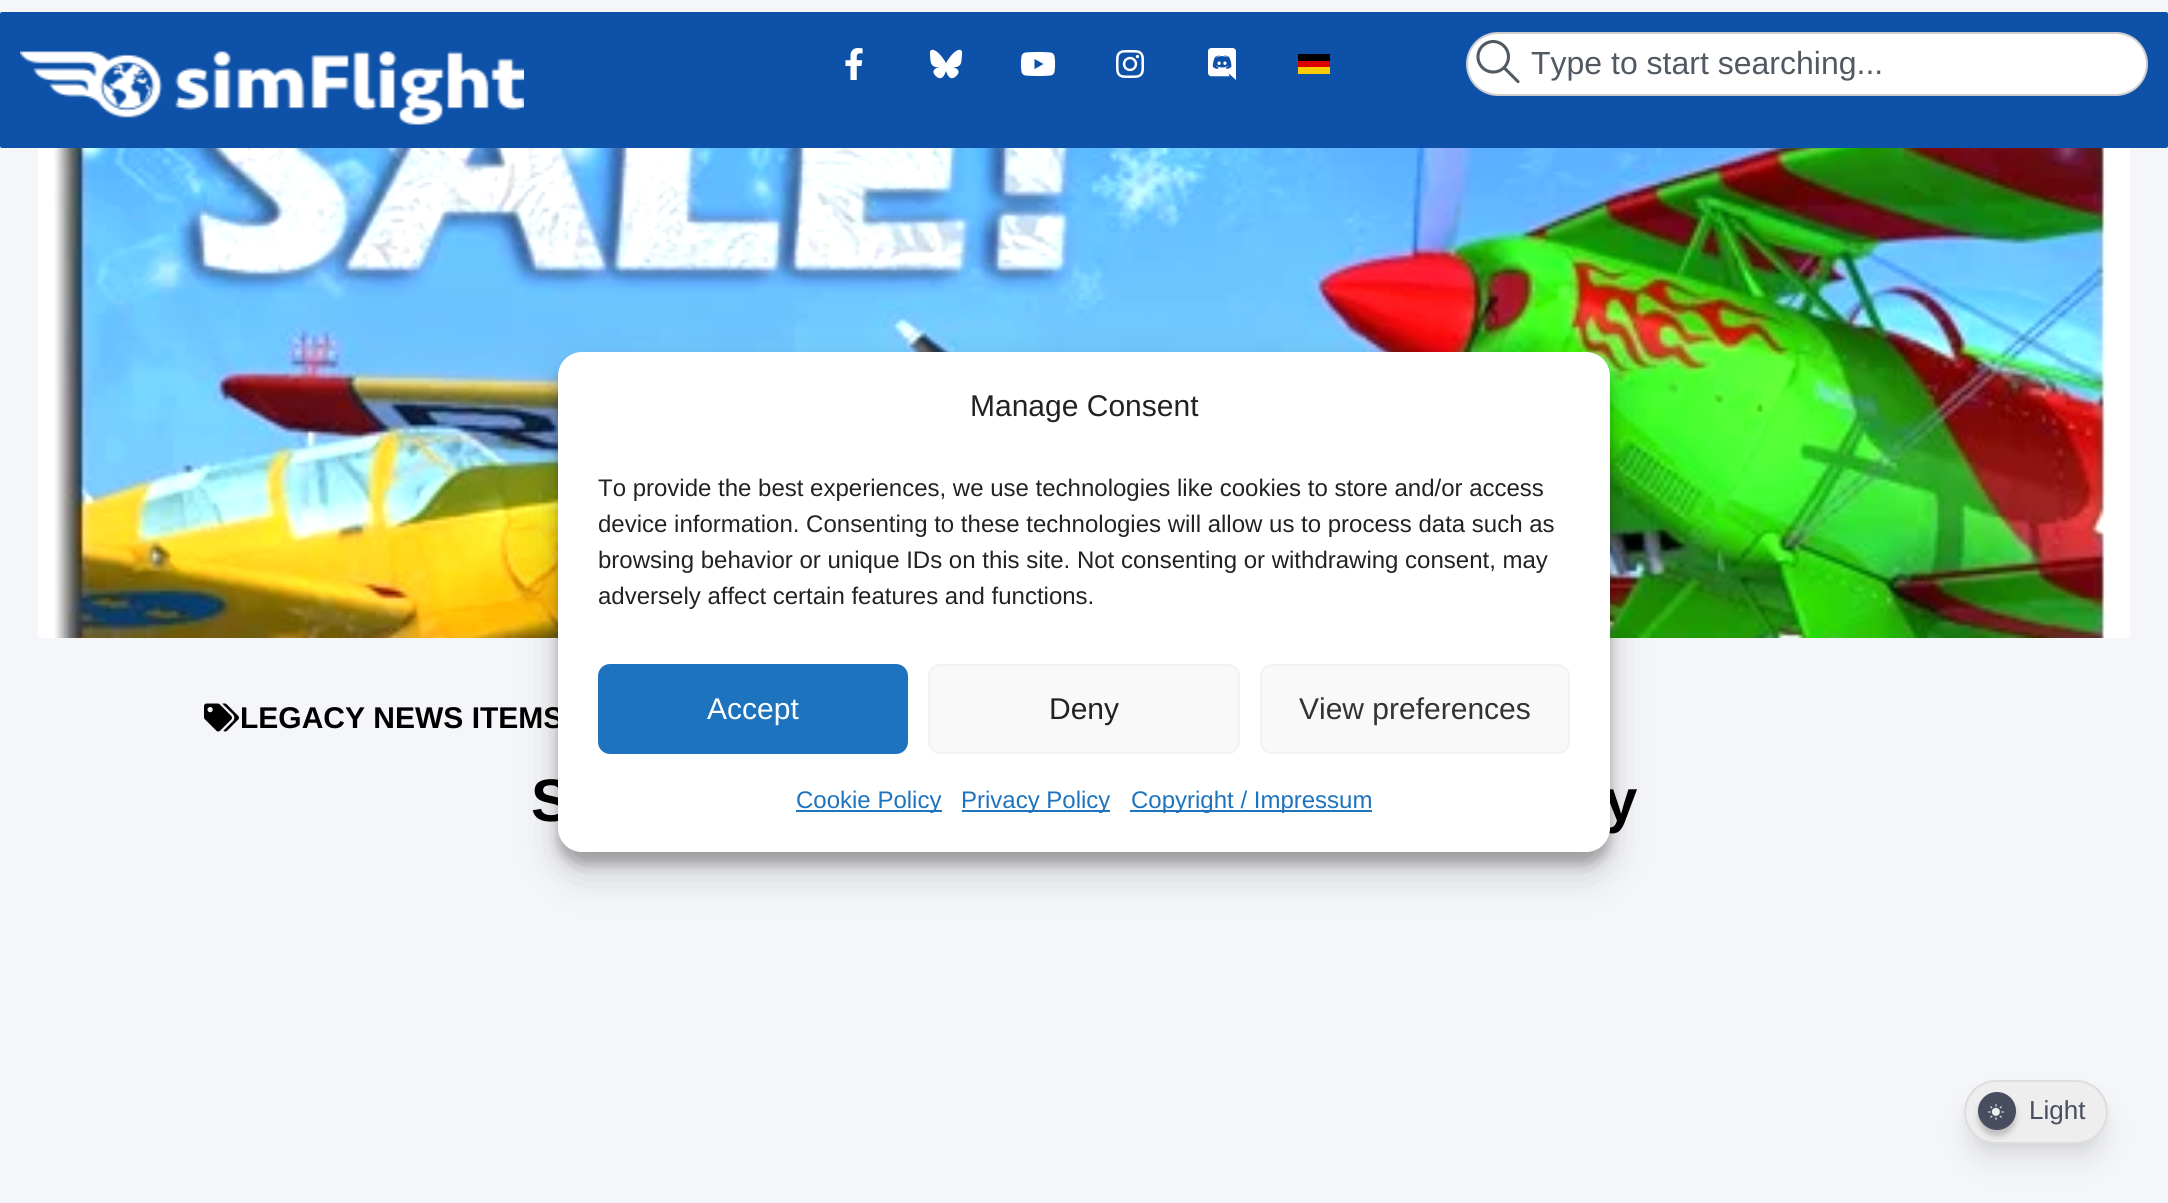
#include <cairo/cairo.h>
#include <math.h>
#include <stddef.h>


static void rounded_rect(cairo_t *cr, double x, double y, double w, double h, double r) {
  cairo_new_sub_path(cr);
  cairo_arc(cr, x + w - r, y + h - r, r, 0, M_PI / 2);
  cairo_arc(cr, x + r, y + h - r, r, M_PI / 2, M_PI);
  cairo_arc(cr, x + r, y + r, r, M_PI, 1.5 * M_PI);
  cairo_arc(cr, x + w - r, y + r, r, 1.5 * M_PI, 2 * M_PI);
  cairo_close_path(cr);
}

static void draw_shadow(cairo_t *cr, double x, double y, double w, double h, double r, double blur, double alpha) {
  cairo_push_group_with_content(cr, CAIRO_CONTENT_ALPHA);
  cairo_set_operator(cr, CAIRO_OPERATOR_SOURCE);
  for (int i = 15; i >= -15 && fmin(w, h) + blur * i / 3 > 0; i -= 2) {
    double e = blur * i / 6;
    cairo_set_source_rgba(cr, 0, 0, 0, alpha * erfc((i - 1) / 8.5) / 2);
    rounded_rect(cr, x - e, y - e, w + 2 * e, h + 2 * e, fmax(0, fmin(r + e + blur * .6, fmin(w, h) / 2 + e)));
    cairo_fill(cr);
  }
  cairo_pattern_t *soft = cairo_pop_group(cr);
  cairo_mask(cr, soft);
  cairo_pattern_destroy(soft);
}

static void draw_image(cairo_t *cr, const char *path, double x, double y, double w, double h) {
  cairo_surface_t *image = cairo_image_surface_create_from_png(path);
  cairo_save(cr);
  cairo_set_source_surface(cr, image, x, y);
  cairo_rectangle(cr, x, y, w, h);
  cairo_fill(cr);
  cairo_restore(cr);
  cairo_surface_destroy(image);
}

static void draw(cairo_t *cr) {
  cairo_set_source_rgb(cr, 245 / 255.0, 246 / 255.0, 249 / 255.0);
  cairo_paint(cr);
  cairo_set_source_rgb(cr, 14 / 255.0, 81 / 255.0, 168 / 255.0);
  rounded_rect(cr, 0, 12, 2168, 136, 2);
  cairo_fill(cr);
  draw_image(cr, "images/1.png", 20, 51, 504, 74);
  draw_image(cr, "images/2.png", 845, 48, 18, 32);
  draw_image(cr, "images/3.png", 930, 49, 32, 30);
  draw_image(cr, "images/4.png", 1020, 52, 36, 24);
  draw_image(cr, "images/5.png", 1116, 49, 29, 29);
  draw_image(cr, "images/6.png", 1208, 48, 28, 32);
  cairo_set_source_rgb(cr, 0, 0, 0);
  cairo_rectangle(cr, 1298, 54, 32, 7);
  cairo_fill(cr);
  cairo_set_source_rgb(cr, 221 / 255.0, 0, 0);
  cairo_rectangle(cr, 1298, 61, 32, 6);
  cairo_fill(cr);
  cairo_set_source_rgb(cr, 1, 206 / 255.0, 0);
  cairo_rectangle(cr, 1298, 67, 32, 7);
  cairo_fill(cr);
  cairo_set_source_rgb(cr, 1, 1, 1);
  rounded_rect(cr, 1467, 33, 680, 62, 31);
  cairo_fill_preserve(cr);
  cairo_set_source_rgb(cr, 205 / 255.0, 205 / 255.0, 205 / 255.0);
  cairo_stroke(cr);
  draw_image(cr, "images/7.png", 1476, 40, 44, 44);
  draw_image(cr, "images/8.png", 38, 148, 2092, 490);
  cairo_set_source_rgb(cr, 0, 0, 0);
  draw_shadow(cr, 558, 364, 1052, 500, 24, 6, 0.23);
  draw_shadow(cr, 558, 372, 1052, 500, 24, 20, 0.19);
  draw_image(cr, "images/9.png", 204, 703, 35, 29);
  draw_shadow(cr, 1968, 1092, 136, 56, 28, 6, 0.05);
  draw_shadow(cr, 1970, 1106, 132, 52, 26, 15, 0.1);
  cairo_set_source_rgb(cr, 238 / 255.0, 238 / 255.0, 238 / 255.0);
  rounded_rect(cr, 1965, 1081, 142, 62, 31);
  cairo_fill_preserve(cr);
  cairo_set_source_rgb(cr, 221 / 255.0, 221 / 255.0, 221 / 255.0);
  cairo_stroke(cr);
  cairo_set_source_rgb(cr, 0, 0, 0);
  draw_shadow(cr, 1978, 1098, 38, 38, 19, 3, 0.2);
  cairo_set_source_rgb(cr, 72 / 255.0, 77 / 255.0, 96 / 255.0);
  cairo_arc(cr, 1997, 1111, 19, 0, 2 * M_PI);
  cairo_fill(cr);
  draw_image(cr, "images/10.png", 1988, 1104, 16, 16);
  cairo_select_font_face(cr, "Liberation Sans", CAIRO_FONT_SLANT_NORMAL, CAIRO_FONT_WEIGHT_NORMAL);
  cairo_set_font_size(cr, 32);
  cairo_set_source_rgb(cr, 81 / 255.0, 89 / 255.0, 98 / 255.0);
  cairo_move_to(cr, 1531, 74);
  cairo_show_text(cr, "Type to start searching...");
  cairo_select_font_face(cr, "Liberation Sans", CAIRO_FONT_SLANT_NORMAL, CAIRO_FONT_WEIGHT_BOLD);
  cairo_set_font_size(cr, 30);
  cairo_set_source_rgb(cr, 0, 0, 0);
  cairo_move_to(cr, 240, 728);
  cairo_show_text(cr, "LEGACY NEWS ITEMS");
  cairo_set_font_size(cr, 60);
  cairo_move_to(cr, 531, 821);
  cairo_show_text(cr, "S");
  cairo_move_to(cr, 1604, 821);
  cairo_show_text(cr, "y");
  cairo_set_source_rgb(cr, 1, 1, 1);
  rounded_rect(cr, 558, 352, 1052, 500, 24);
  cairo_fill(cr);
  cairo_select_font_face(cr, "Liberation Sans", CAIRO_FONT_SLANT_NORMAL, CAIRO_FONT_WEIGHT_NORMAL);
  cairo_set_font_size(cr, 24);
  cairo_set_source_rgb(cr, 34 / 255.0, 34 / 255.0, 34 / 255.0);
  cairo_move_to(cr, 598, 604);
  cairo_show_text(cr, "adversely affect certain features and functions.");
  cairo_move_to(cr, 598, 568);
  cairo_show_text(cr, "browsing behavior or unique IDs on this site. Not consenting or withdrawing consent, may");
  cairo_move_to(cr, 598, 532);
  cairo_show_text(cr, "device information. Consenting to these technologies will allow us to process data such as");
  cairo_move_to(cr, 598, 496);
  cairo_show_text(cr, "To provide the best experiences, we use technologies like cookies to store and/or access");
  cairo_set_source_rgb(cr, 30 / 255.0, 115 / 255.0, 190 / 255.0);
  cairo_rectangle(cr, 1130, 810, 242, 2);
  cairo_fill(cr);
  cairo_move_to(cr, 1131, 808);
  cairo_show_text(cr, "Copyright / Impressum");
  cairo_rectangle(cr, 962, 810, 148, 2);
  cairo_fill(cr);
  cairo_move_to(cr, 961, 808);
  cairo_show_text(cr, "Privacy Policy");
  cairo_rectangle(cr, 796, 810, 146, 2);
  cairo_fill(cr);
  cairo_move_to(cr, 796, 808);
  cairo_show_text(cr, "Cookie Policy");
  cairo_set_source_rgb(cr, 249 / 255.0, 249 / 255.0, 249 / 255.0);
  rounded_rect(cr, 1261, 665, 308, 88, 11);
  cairo_fill_preserve(cr);
  cairo_set_source_rgb(cr, 242 / 255.0, 242 / 255.0, 242 / 255.0);
  cairo_stroke(cr);
  cairo_set_font_size(cr, 30);
  cairo_set_source_rgb(cr, 51 / 255.0, 51 / 255.0, 51 / 255.0);
  cairo_move_to(cr, 1299, 719);
  cairo_show_text(cr, "View preferences");
  cairo_set_source_rgb(cr, 249 / 255.0, 249 / 255.0, 249 / 255.0);
  rounded_rect(cr, 929, 665, 310, 88, 11);
  cairo_fill_preserve(cr);
  cairo_set_source_rgb(cr, 242 / 255.0, 242 / 255.0, 242 / 255.0);
  cairo_stroke(cr);
  cairo_set_source_rgb(cr, 34 / 255.0, 34 / 255.0, 34 / 255.0);
  cairo_move_to(cr, 1049, 719);
  cairo_show_text(cr, "Deny");
  cairo_set_source_rgb(cr, 30 / 255.0, 115 / 255.0, 190 / 255.0);
  rounded_rect(cr, 599, 665, 308, 88, 11);
  cairo_fill_preserve(cr);
  cairo_stroke(cr);
  cairo_set_source_rgb(cr, 1, 1, 1);
  cairo_move_to(cr, 707, 719);
  cairo_show_text(cr, "Accept");
  cairo_set_source_rgb(cr, 34 / 255.0, 34 / 255.0, 34 / 255.0);
  cairo_move_to(cr, 970, 416);
  cairo_show_text(cr, "Manage Consent");
  cairo_set_font_size(cr, 26);
  cairo_set_source_rgb(cr, 72 / 255.0, 77 / 255.0, 96 / 255.0);
  cairo_move_to(cr, 2029, 1119);
  cairo_show_text(cr, "Light");
}

int main(void) {
  cairo_surface_t *surface = cairo_image_surface_create(CAIRO_FORMAT_RGB24, 2168, 1203);
  cairo_t *cr = cairo_create(surface);
  cairo_font_options_t *options = cairo_font_options_create();
  cairo_font_options_set_hint_metrics(options, CAIRO_HINT_METRICS_OFF);
  cairo_font_options_set_hint_style(options, CAIRO_HINT_STYLE_NONE);
  cairo_set_font_options(cr, options);
  cairo_set_miter_limit(cr, 4);
  draw(cr);
  cairo_surface_write_to_png(surface, "out.png");
  cairo_font_options_destroy(options);
  cairo_destroy(cr);
  cairo_surface_destroy(surface);
  return 0;
}
